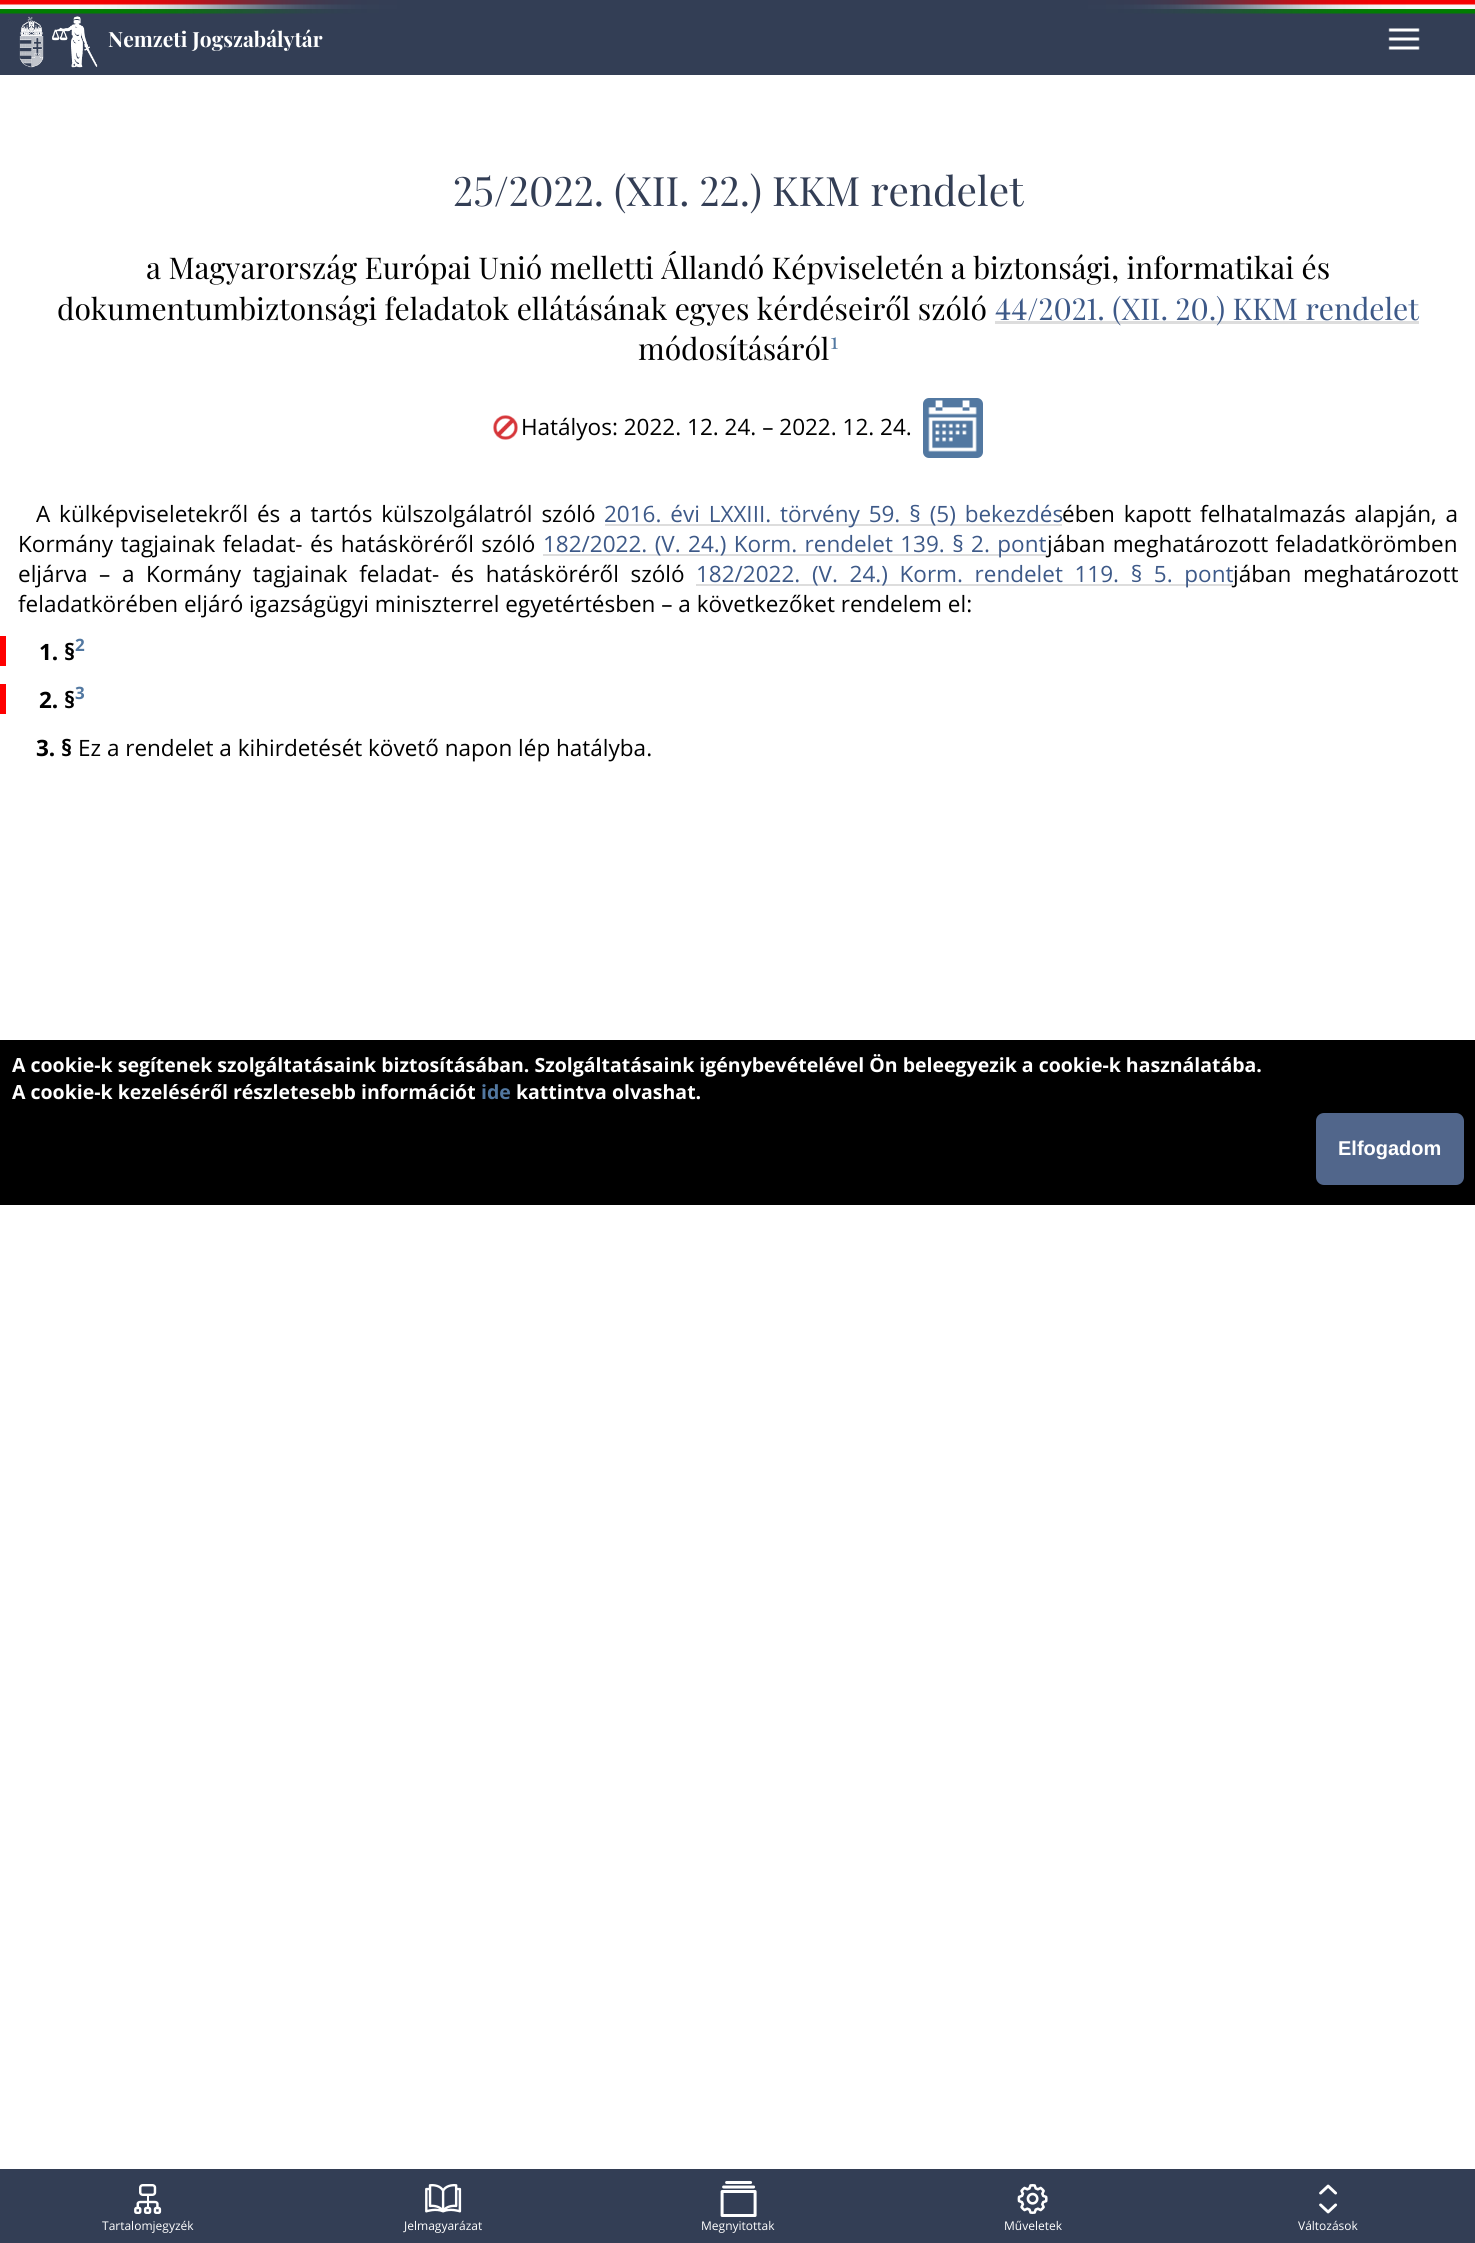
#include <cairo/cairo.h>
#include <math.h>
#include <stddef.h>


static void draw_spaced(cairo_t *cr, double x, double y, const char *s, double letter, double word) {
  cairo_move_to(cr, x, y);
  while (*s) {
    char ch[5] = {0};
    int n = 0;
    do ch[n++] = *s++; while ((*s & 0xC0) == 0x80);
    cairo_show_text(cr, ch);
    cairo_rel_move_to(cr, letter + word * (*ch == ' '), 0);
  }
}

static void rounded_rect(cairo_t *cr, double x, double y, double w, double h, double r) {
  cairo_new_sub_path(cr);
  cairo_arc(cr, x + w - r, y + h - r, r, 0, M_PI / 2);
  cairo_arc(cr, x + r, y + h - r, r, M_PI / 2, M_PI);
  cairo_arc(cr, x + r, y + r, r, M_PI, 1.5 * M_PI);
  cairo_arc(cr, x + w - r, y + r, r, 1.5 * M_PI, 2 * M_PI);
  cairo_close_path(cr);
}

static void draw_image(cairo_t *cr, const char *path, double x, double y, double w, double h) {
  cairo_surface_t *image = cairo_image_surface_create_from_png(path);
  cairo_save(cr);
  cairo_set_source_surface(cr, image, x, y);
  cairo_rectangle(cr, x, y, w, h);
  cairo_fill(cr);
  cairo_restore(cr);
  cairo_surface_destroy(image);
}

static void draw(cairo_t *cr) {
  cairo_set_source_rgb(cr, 1, 1, 1);
  cairo_paint(cr);
  cairo_set_source_rgb(cr, 51 / 255.0, 62 / 255.0, 85 / 255.0);
  cairo_rectangle(cr, 0, 0, 1475, 75);
  cairo_fill(cr);
  draw_image(cr, "images/1.png", 0, 0, 1475, 14);
  draw_image(cr, "images/2.png", 19, 16, 79, 52);
  draw_image(cr, "images/3.png", 1388, 28, 32, 22);
  cairo_set_source_rgb(cr, 221 / 255.0, 221 / 255.0, 221 / 255.0);
  cairo_rectangle(cr, 995, 321, 424, 3);
  cairo_fill(cr);
  draw_image(cr, "images/4.png", 493, 415, 25, 25);
  cairo_set_source_rgb(cr, 82 / 255.0, 120 / 255.0, 161 / 255.0);
  rounded_rect(cr, 923, 398, 60, 60, 6);
  cairo_fill(cr);
  draw_image(cr, "images/5.png", 928, 400, 49, 52);
  cairo_set_source_rgb(cr, 221 / 255.0, 221 / 255.0, 221 / 255.0);
  cairo_rectangle(cr, 605, 524, 457, 2);
  cairo_fill(cr);
  cairo_rectangle(cr, 543, 554, 504, 2);
  cairo_fill(cr);
  cairo_rectangle(cr, 696, 584, 537, 2);
  cairo_fill(cr);
  cairo_set_source_rgb(cr, 1, 0, 0);
  cairo_rectangle(cr, 0, 636, 6, 30);
  cairo_fill(cr);
  cairo_rectangle(cr, 0, 684, 6, 30);
  cairo_fill(cr);
  cairo_set_source_rgb(cr, 0, 0, 0);
  cairo_rectangle(cr, 0, 1040, 1475, 165);
  cairo_fill(cr);
  cairo_set_source_rgb(cr, 81 / 255.0, 102 / 255.0, 139 / 255.0);
  rounded_rect(cr, 1316, 1113, 148, 72, 8);
  cairo_fill(cr);
  cairo_set_source_rgb(cr, 51 / 255.0, 62 / 255.0, 85 / 255.0);
  cairo_rectangle(cr, 0, 2169, 1475, 74);
  cairo_fill(cr);
  draw_image(cr, "images/6.png", 134, 2184, 28, 30);
  draw_image(cr, "images/7.png", 425, 2184, 37, 29);
  draw_image(cr, "images/8.png", 720, 2181, 37, 36);
  draw_image(cr, "images/9.png", 1017, 2184, 31, 30);
  draw_image(cr, "images/10.png", 1319, 2184, 19, 30);
  cairo_select_font_face(cr, "Playfair Display", CAIRO_FONT_SLANT_NORMAL, CAIRO_FONT_WEIGHT_BOLD);
  cairo_set_font_size(cr, 21);
  cairo_set_source_rgb(cr, 1, 1, 1);
  cairo_move_to(cr, 108, 47);
  cairo_show_text(cr, "Nemzeti Jogszabálytár");
  cairo_select_font_face(cr, "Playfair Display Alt", CAIRO_FONT_SLANT_NORMAL, CAIRO_FONT_WEIGHT_NORMAL);
  cairo_set_font_size(cr, 40.5);
  cairo_set_source_rgb(cr, 51 / 255.0, 62 / 255.0, 85 / 255.0);
  cairo_move_to(cr, 453, 206);
  cairo_show_text(cr, "25/2022. (XII. 22.) KKM rendelet");
  cairo_select_font_face(cr, "Playfair Display", CAIRO_FONT_SLANT_NORMAL, CAIRO_FONT_WEIGHT_NORMAL);
  cairo_set_font_size(cr, 30);
  cairo_set_source_rgb(cr, 0, 0, 0);
  cairo_move_to(cr, 146, 279);
  cairo_show_text(cr, "a Magyarország Európai Unió melletti Állandó Képviseletén a biztonsági, informatikai és");
  cairo_move_to(cr, 57, 320);
  cairo_show_text(cr, "dokumentumbiztonsági feladatok ellátásának egyes kérdéseiről szóló");
  cairo_select_font_face(cr, "Playfair Display Alt", CAIRO_FONT_SLANT_NORMAL, CAIRO_FONT_WEIGHT_NORMAL);
  cairo_set_source_rgb(cr, 61 / 255.0, 89 / 255.0, 136 / 255.0);
  cairo_move_to(cr, 995, 320);
  cairo_show_text(cr, "44/2021. (XII. 20.) KKM rendelet");
  cairo_select_font_face(cr, "Playfair Display", CAIRO_FONT_SLANT_NORMAL, CAIRO_FONT_WEIGHT_NORMAL);
  cairo_set_source_rgb(cr, 0, 0, 0);
  cairo_move_to(cr, 638, 360);
  cairo_show_text(cr, "módosításáról");
  cairo_set_font_size(cr, 22.5);
  cairo_set_source_rgb(cr, 82 / 255.0, 120 / 255.0, 161 / 255.0);
  cairo_move_to(cr, 830, 349);
  cairo_show_text(cr, "1");
  cairo_select_font_face(cr, "Open Sans", CAIRO_FONT_SLANT_NORMAL, CAIRO_FONT_WEIGHT_NORMAL);
  cairo_set_source_rgb(cr, 0, 0, 0);
  cairo_move_to(cr, 521, 435);
  cairo_show_text(cr, "Hatályos: 2022. 12. 24. – 2022. 12. 24.");
  draw_spaced(cr, 36, 522, "A külképviseletekről és a tartós külszolgálatról szóló", 0, 3);
  cairo_set_source_rgb(cr, 61 / 255.0, 89 / 255.0, 136 / 255.0);
  draw_spaced(cr, 604, 522, "2016. évi LXXIII. törvény 59. § (5) bekezdés", 0, 3);
  cairo_set_source_rgb(cr, 0, 0, 0);
  draw_spaced(cr, 1062, 522, "ében kapott felhatalmazás alapján, a", 0, 3);
  draw_spaced(cr, 18, 552, "Kormány tagjainak feladat- és hatásköréről szóló", 0, 1.5);
  cairo_set_source_rgb(cr, 61 / 255.0, 89 / 255.0, 136 / 255.0);
  draw_spaced(cr, 543, 552, "182/2022. (V. 24.) Korm. rendelet 139. § 2. pont", 0, 1.5);
  cairo_set_source_rgb(cr, 0, 0, 0);
  draw_spaced(cr, 1047, 552, "jában meghatározott feladatkörömben", 0, 1.5);
  draw_spaced(cr, 18, 582, "eljárva – a Kormány tagjainak feladat- és hatásköréről szóló", 0, 5.75);
  cairo_set_source_rgb(cr, 61 / 255.0, 89 / 255.0, 136 / 255.0);
  draw_spaced(cr, 696, 582, "182/2022. (V. 24.) Korm. rendelet 119. § 5. pont", 0, 5.75);
  cairo_set_source_rgb(cr, 0, 0, 0);
  draw_spaced(cr, 1233, 582, "jában meghatározott", 0, 5.75);
  cairo_move_to(cr, 18, 612);
  cairo_show_text(cr, "feladatkörében eljáró igazságügyi miniszterrel egyetértésben – a következőket rendelem el:");
  cairo_select_font_face(cr, "Open Sans", CAIRO_FONT_SLANT_NORMAL, CAIRO_FONT_WEIGHT_BOLD);
  cairo_move_to(cr, 39, 660);
  cairo_show_text(cr, "1. §");
  cairo_set_font_size(cr, 17);
  cairo_set_source_rgb(cr, 82 / 255.0, 120 / 255.0, 161 / 255.0);
  cairo_move_to(cr, 75, 651);
  cairo_show_text(cr, "2");
  cairo_set_font_size(cr, 22.5);
  cairo_set_source_rgb(cr, 0, 0, 0);
  cairo_move_to(cr, 39, 708);
  cairo_show_text(cr, "2. §");
  cairo_set_font_size(cr, 17);
  cairo_set_source_rgb(cr, 82 / 255.0, 120 / 255.0, 161 / 255.0);
  cairo_move_to(cr, 75, 699);
  cairo_show_text(cr, "3");
  cairo_set_font_size(cr, 22.5);
  cairo_set_source_rgb(cr, 0, 0, 0);
  cairo_move_to(cr, 36, 756);
  cairo_show_text(cr, "3. §");
  cairo_select_font_face(cr, "Open Sans", CAIRO_FONT_SLANT_NORMAL, CAIRO_FONT_WEIGHT_NORMAL);
  cairo_move_to(cr, 78, 756);
  cairo_show_text(cr, "Ez a rendelet a kihirdetését követő napon lép hatályba.");
  cairo_select_font_face(cr, "Open Sans", CAIRO_FONT_SLANT_NORMAL, CAIRO_FONT_WEIGHT_BOLD);
  cairo_set_font_size(cr, 19.5);
  cairo_set_source_rgb(cr, 1, 1, 1);
  cairo_move_to(cr, 12, 1072);
  cairo_show_text(cr, "A cookie-k segítenek szolgáltatásaink biztosításában. Szolgáltatásaink igénybevételével Ön beleegyezik a cookie-k használatába.");
  cairo_move_to(cr, 12, 1099);
  cairo_show_text(cr, "A cookie-k kezeléséről részletesebb információt");
  cairo_set_source_rgb(cr, 82 / 255.0, 120 / 255.0, 161 / 255.0);
  cairo_move_to(cr, 481, 1099);
  cairo_show_text(cr, "ide");
  cairo_set_source_rgb(cr, 1, 1, 1);
  cairo_move_to(cr, 516, 1099);
  cairo_show_text(cr, "kattintva olvashat.");
  cairo_select_font_face(cr, "Liberation Sans", CAIRO_FONT_SLANT_NORMAL, CAIRO_FONT_WEIGHT_BOLD);
  cairo_set_font_size(cr, 20);
  cairo_move_to(cr, 1338, 1155);
  cairo_show_text(cr, "Elfogadom");
  cairo_select_font_face(cr, "Open Sans", CAIRO_FONT_SLANT_NORMAL, CAIRO_FONT_WEIGHT_NORMAL);
  cairo_set_font_size(cr, 12);
  cairo_move_to(cr, 102, 2230);
  cairo_show_text(cr, "Tartalomjegyzék");
  cairo_move_to(cr, 404, 2230);
  cairo_show_text(cr, "Jelmagyarázat");
  cairo_move_to(cr, 701, 2230);
  cairo_show_text(cr, "Megnyitottak");
  cairo_move_to(cr, 1004, 2230);
  cairo_show_text(cr, "Műveletek");
  cairo_move_to(cr, 1298, 2230);
  cairo_show_text(cr, "Változások");
}

int main(void) {
  cairo_surface_t *surface = cairo_image_surface_create(CAIRO_FORMAT_RGB24, 1475, 2243);
  cairo_t *cr = cairo_create(surface);
  cairo_font_options_t *options = cairo_font_options_create();
  cairo_font_options_set_hint_metrics(options, CAIRO_HINT_METRICS_OFF);
  cairo_font_options_set_hint_style(options, CAIRO_HINT_STYLE_NONE);
  cairo_set_font_options(cr, options);
  cairo_set_miter_limit(cr, 4);
  draw(cr);
  cairo_surface_write_to_png(surface, "out.png");
  cairo_font_options_destroy(options);
  cairo_destroy(cr);
  cairo_surface_destroy(surface);
  return 0;
}
